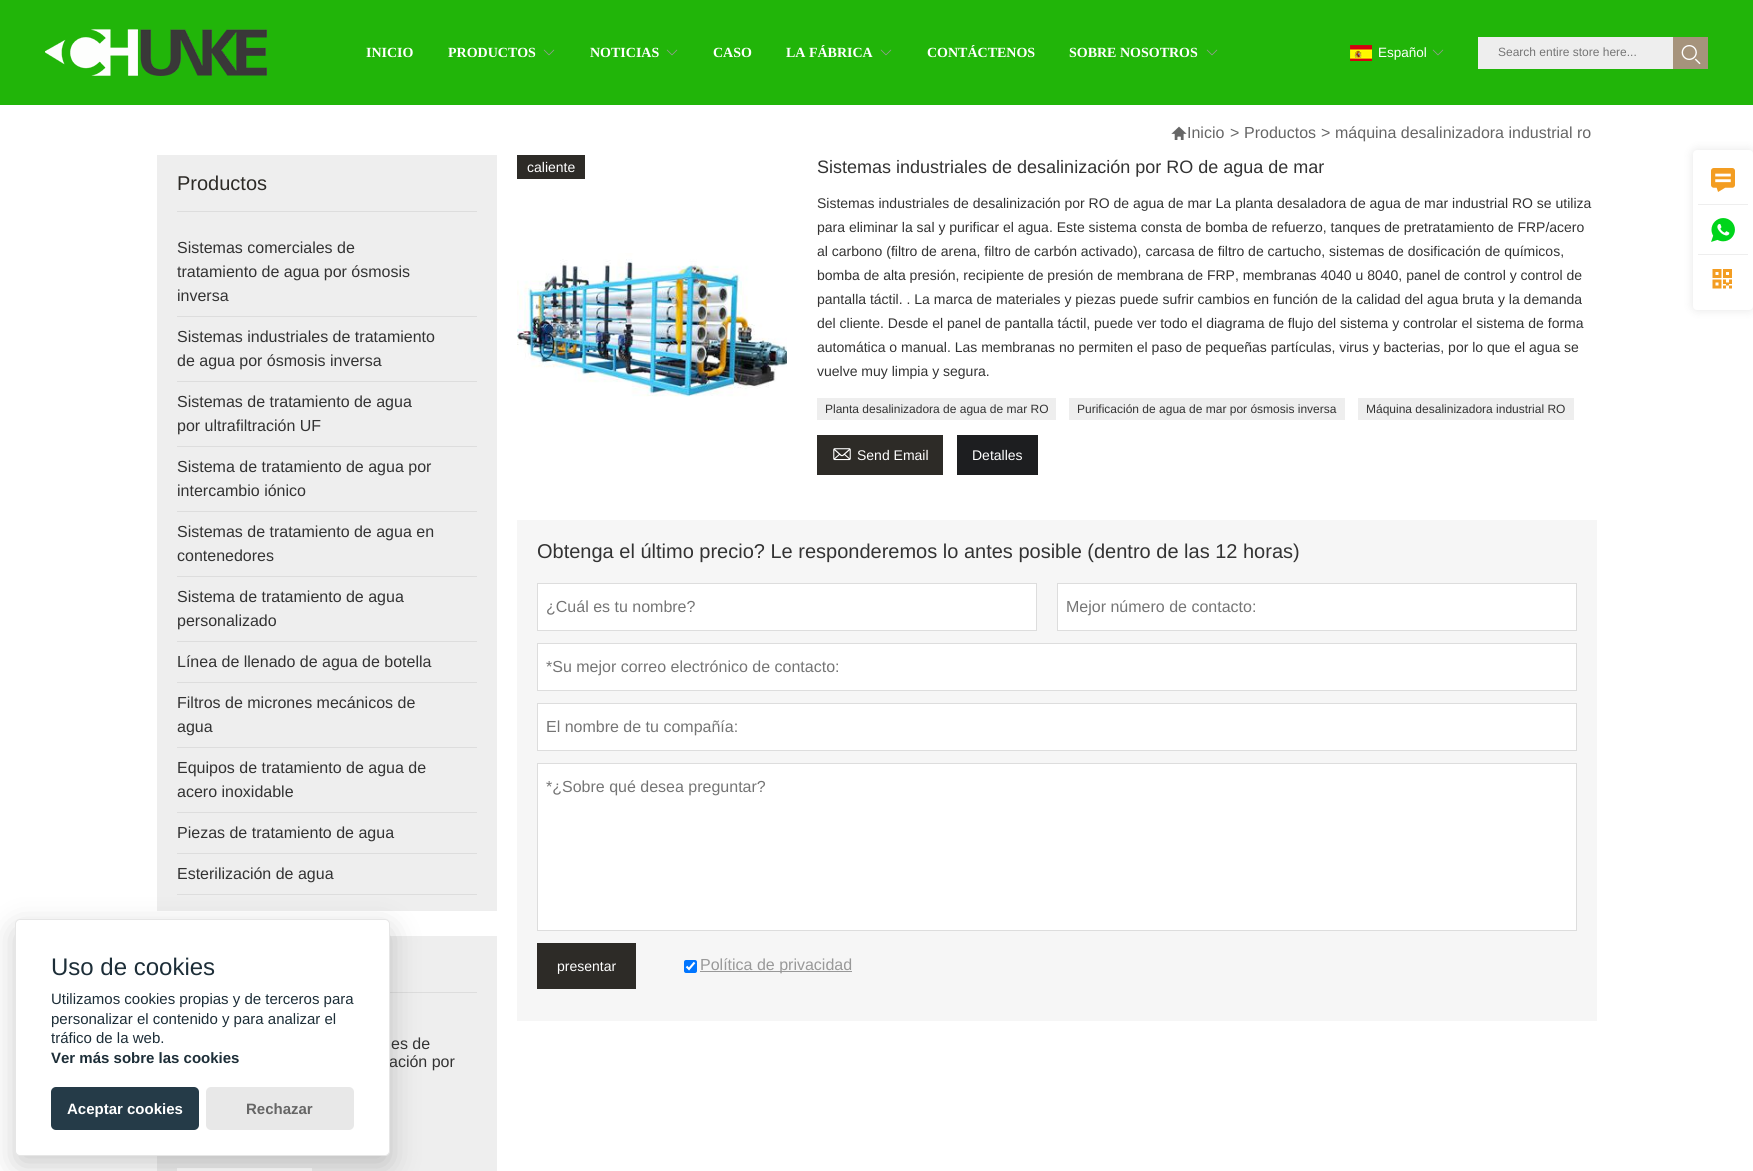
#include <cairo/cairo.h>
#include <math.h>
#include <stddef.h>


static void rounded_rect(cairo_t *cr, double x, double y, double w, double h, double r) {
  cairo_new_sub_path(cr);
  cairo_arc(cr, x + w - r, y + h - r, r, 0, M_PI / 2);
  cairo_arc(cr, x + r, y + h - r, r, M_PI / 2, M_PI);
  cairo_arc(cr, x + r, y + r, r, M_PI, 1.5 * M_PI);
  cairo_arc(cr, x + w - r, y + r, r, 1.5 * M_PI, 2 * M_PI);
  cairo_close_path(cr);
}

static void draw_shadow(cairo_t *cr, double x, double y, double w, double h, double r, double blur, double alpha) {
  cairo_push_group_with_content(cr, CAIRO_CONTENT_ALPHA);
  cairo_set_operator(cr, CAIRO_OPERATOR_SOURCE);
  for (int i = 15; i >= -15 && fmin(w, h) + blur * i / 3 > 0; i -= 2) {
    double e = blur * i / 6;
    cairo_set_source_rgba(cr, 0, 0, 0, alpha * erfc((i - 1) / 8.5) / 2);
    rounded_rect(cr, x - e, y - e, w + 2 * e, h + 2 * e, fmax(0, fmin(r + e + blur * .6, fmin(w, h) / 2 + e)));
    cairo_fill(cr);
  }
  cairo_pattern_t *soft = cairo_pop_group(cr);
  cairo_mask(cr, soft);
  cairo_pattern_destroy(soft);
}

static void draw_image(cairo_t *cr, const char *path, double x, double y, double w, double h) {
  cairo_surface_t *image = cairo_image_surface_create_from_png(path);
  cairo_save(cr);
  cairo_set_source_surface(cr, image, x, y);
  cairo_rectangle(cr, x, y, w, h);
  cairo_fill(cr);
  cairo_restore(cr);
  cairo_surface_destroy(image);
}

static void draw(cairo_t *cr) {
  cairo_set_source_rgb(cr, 1, 1, 1);
  cairo_paint(cr);
  cairo_set_source_rgb(cr, 33 / 255.0, 181 / 255.0, 9 / 255.0);
  cairo_rectangle(cr, 0, 0, 1753, 105);
  cairo_fill(cr);
  draw_image(cr, "images/1.png", 45, 29, 222, 47);
  draw_image(cr, "images/2.png", 543, 49, 12, 7);
  draw_image(cr, "images/2.png", 666, 49, 12, 7);
  draw_image(cr, "images/2.png", 880, 49, 12, 7);
  draw_image(cr, "images/2.png", 1206, 49, 12, 7);
  draw_image(cr, "images/3.png", 1350, 45, 22, 16);
  draw_image(cr, "images/2.png", 1432, 49, 12, 7);
  cairo_set_source_rgb(cr, 238 / 255.0, 238 / 255.0, 238 / 255.0);
  cairo_rectangle(cr, 1478, 37, 195, 32);
  cairo_fill(cr);
  cairo_set_source_rgb(cr, 166 / 255.0, 147 / 255.0, 124 / 255.0);
  cairo_rectangle(cr, 1673, 37, 35, 32);
  cairo_fill(cr);
  draw_image(cr, "images/4.png", 1681, 45, 20, 20);
  draw_image(cr, "images/5.png", 1171, 126, 16, 14);
  cairo_set_source_rgb(cr, 0, 0, 0);
  draw_shadow(cr, 1693, 150, 60, 160, 4, 5, 0.1);
  cairo_set_source_rgb(cr, 1, 1, 1);
  rounded_rect(cr, 1693, 150, 60, 160, 4);
  cairo_fill(cr);
  cairo_set_source_rgb(cr, 238 / 255.0, 238 / 255.0, 238 / 255.0);
  cairo_rectangle(cr, 1698, 204, 50, 1);
  cairo_fill(cr);
  draw_image(cr, "images/6.png", 1711, 168, 24, 24);
  cairo_rectangle(cr, 1698, 254, 50, 1);
  cairo_fill(cr);
  draw_image(cr, "images/7.png", 1711, 218, 24, 24);
  draw_image(cr, "images/8.png", 1712, 269, 20, 20);
  cairo_rectangle(cr, 157, 155, 340, 756);
  cairo_fill(cr);
  cairo_set_source_rgb(cr, 221 / 255.0, 221 / 255.0, 221 / 255.0);
  cairo_rectangle(cr, 177, 211, 300, 1);
  cairo_fill(cr);
  cairo_rectangle(cr, 177, 316, 300, 1);
  cairo_fill(cr);
  cairo_rectangle(cr, 177, 381, 300, 1);
  cairo_fill(cr);
  cairo_rectangle(cr, 177, 446, 300, 1);
  cairo_fill(cr);
  cairo_rectangle(cr, 177, 511, 300, 1);
  cairo_fill(cr);
  cairo_rectangle(cr, 177, 576, 300, 1);
  cairo_fill(cr);
  cairo_rectangle(cr, 177, 641, 300, 1);
  cairo_fill(cr);
  cairo_rectangle(cr, 177, 682, 300, 1);
  cairo_fill(cr);
  cairo_rectangle(cr, 177, 747, 300, 1);
  cairo_fill(cr);
  cairo_rectangle(cr, 177, 812, 300, 1);
  cairo_fill(cr);
  cairo_rectangle(cr, 177, 853, 300, 1);
  cairo_fill(cr);
  cairo_rectangle(cr, 177, 894, 300, 1);
  cairo_fill(cr);
  cairo_set_source_rgb(cr, 238 / 255.0, 238 / 255.0, 238 / 255.0);
  cairo_rectangle(cr, 157, 936, 340, 235);
  cairo_fill(cr);
  cairo_set_source_rgb(cr, 221 / 255.0, 221 / 255.0, 221 / 255.0);
  cairo_rectangle(cr, 390, 992, 87, 1);
  cairo_fill(cr);
  cairo_set_source_rgb(cr, 1, 1, 1);
  cairo_rectangle(cr, 177, 1168, 135, 3);
  cairo_fill(cr);
  cairo_set_source_rgb(cr, 45 / 255.0, 43 / 255.0, 39 / 255.0);
  cairo_rectangle(cr, 517, 155, 68, 24);
  cairo_fill(cr);
  cairo_set_source_rgb(cr, 238 / 255.0, 238 / 255.0, 238 / 255.0);
  cairo_rectangle(cr, 817, 398, 239, 22);
  cairo_fill(cr);
  cairo_rectangle(cr, 1069, 398, 276, 22);
  cairo_fill(cr);
  cairo_rectangle(cr, 1358, 398, 216, 22);
  cairo_fill(cr);
  cairo_set_source_rgb(cr, 45 / 255.0, 43 / 255.0, 39 / 255.0);
  cairo_rectangle(cr, 817, 435, 126, 40);
  cairo_fill(cr);
  draw_image(cr, "images/9.png", 833, 448, 18, 13);
  cairo_set_source_rgb(cr, 29 / 255.0, 30 / 255.0, 32 / 255.0);
  cairo_rectangle(cr, 957, 435, 81, 40);
  cairo_fill(cr);
  draw_image(cr, "images/10.png", 517, 253, 270, 144);
  cairo_set_source_rgb(cr, 246 / 255.0, 246 / 255.0, 246 / 255.0);
  cairo_rectangle(cr, 517, 520, 1080, 501);
  cairo_fill(cr);
  cairo_set_source_rgb(cr, 1, 1, 1);
  cairo_rectangle(cr, 537.5, 583.5, 499, 47);
  cairo_fill_preserve(cr);
  cairo_set_source_rgb(cr, 221 / 255.0, 221 / 255.0, 221 / 255.0);
  cairo_set_line_width(cr, 1);
  cairo_stroke(cr);
  cairo_set_source_rgb(cr, 1, 1, 1);
  cairo_rectangle(cr, 1057.5, 583.5, 519, 47);
  cairo_fill_preserve(cr);
  cairo_set_source_rgb(cr, 221 / 255.0, 221 / 255.0, 221 / 255.0);
  cairo_stroke(cr);
  cairo_set_source_rgb(cr, 1, 1, 1);
  cairo_rectangle(cr, 537.5, 643.5, 1039, 47);
  cairo_fill_preserve(cr);
  cairo_set_source_rgb(cr, 221 / 255.0, 221 / 255.0, 221 / 255.0);
  cairo_stroke(cr);
  cairo_set_source_rgb(cr, 1, 1, 1);
  cairo_rectangle(cr, 537.5, 703.5, 1039, 47);
  cairo_fill_preserve(cr);
  cairo_set_source_rgb(cr, 221 / 255.0, 221 / 255.0, 221 / 255.0);
  cairo_stroke(cr);
  cairo_set_source_rgb(cr, 1, 1, 1);
  cairo_rectangle(cr, 537.5, 763.5, 1039, 167);
  cairo_fill_preserve(cr);
  cairo_set_source_rgb(cr, 221 / 255.0, 221 / 255.0, 221 / 255.0);
  cairo_stroke(cr);
  cairo_set_source_rgb(cr, 45 / 255.0, 43 / 255.0, 39 / 255.0);
  cairo_rectangle(cr, 537, 943, 99, 46);
  cairo_fill(cr);
  cairo_set_source_rgb(cr, 0, 117 / 255.0, 1);
  rounded_rect(cr, 684, 960, 13, 13, 2);
  cairo_fill(cr);
  cairo_new_path(cr);
  cairo_move_to(cr, 686.5, 966.5);
  cairo_line_to(cr, 689, 969);
  cairo_line_to(cr, 694.5, 962.5);
  cairo_set_source_rgb(cr, 1, 1, 1);
  cairo_set_line_width(cr, 2.1);
  cairo_stroke(cr);
  cairo_set_source_rgb(cr, 153 / 255.0, 153 / 255.0, 153 / 255.0);
  cairo_rectangle(cr, 700, 971, 152, 1);
  cairo_fill(cr);
  cairo_set_source_rgb(cr, 2 / 255.0, 2 / 255.0, 3 / 255.0);
  draw_shadow(cr, 15, 929, 375, 237, 5, 15, 0.2);
  cairo_select_font_face(cr, "Liberation Serif", CAIRO_FONT_SLANT_NORMAL, CAIRO_FONT_WEIGHT_BOLD);
  cairo_set_font_size(cr, 14);
  cairo_set_source_rgb(cr, 1, 1, 1);
  cairo_move_to(cr, 366, 57);
  cairo_show_text(cr, "INICIO");
  cairo_move_to(cr, 448, 57);
  cairo_show_text(cr, "PRODUCTOS");
  cairo_move_to(cr, 590, 57);
  cairo_show_text(cr, "NOTICIAS");
  cairo_move_to(cr, 713, 57);
  cairo_show_text(cr, "CASO");
  cairo_move_to(cr, 786, 57);
  cairo_show_text(cr, "LA FÁBRICA");
  cairo_move_to(cr, 927, 57);
  cairo_show_text(cr, "CONTÁCTENOS");
  cairo_move_to(cr, 1069, 57);
  cairo_show_text(cr, "SOBRE NOSOTROS");
  cairo_select_font_face(cr, "Liberation Sans", CAIRO_FONT_SLANT_NORMAL, CAIRO_FONT_WEIGHT_NORMAL);
  cairo_set_font_size(cr, 13.5);
  cairo_move_to(cr, 1378, 57);
  cairo_show_text(cr, "Español");
  cairo_set_font_size(cr, 12);
  cairo_set_source_rgb(cr, 117 / 255.0, 117 / 255.0, 117 / 255.0);
  cairo_move_to(cr, 1498, 56);
  cairo_show_text(cr, "Search entire store here...");
  cairo_set_font_size(cr, 16);
  cairo_set_source_rgb(cr, 102 / 255.0, 102 / 255.0, 102 / 255.0);
  cairo_move_to(cr, 1187, 138);
  cairo_show_text(cr, "Inicio");
  cairo_move_to(cr, 1230, 138);
  cairo_show_text(cr, ">");
  cairo_move_to(cr, 1244, 138);
  cairo_show_text(cr, "Productos");
  cairo_move_to(cr, 1321, 138);
  cairo_show_text(cr, ">");
  cairo_move_to(cr, 1335, 138);
  cairo_show_text(cr, "máquina desalinizadora industrial ro");
  cairo_set_font_size(cr, 20);
  cairo_set_source_rgb(cr, 45 / 255.0, 43 / 255.0, 39 / 255.0);
  cairo_move_to(cr, 177, 190);
  cairo_show_text(cr, "Productos");
  cairo_set_font_size(cr, 16);
  cairo_set_source_rgb(cr, 51 / 255.0, 51 / 255.0, 51 / 255.0);
  cairo_move_to(cr, 177, 253);
  cairo_show_text(cr, "Sistemas comerciales de");
  cairo_move_to(cr, 177, 277);
  cairo_show_text(cr, "tratamiento de agua por ósmosis");
  cairo_move_to(cr, 177, 301);
  cairo_show_text(cr, "inversa");
  cairo_move_to(cr, 177, 342);
  cairo_show_text(cr, "Sistemas industriales de tratamiento");
  cairo_move_to(cr, 177, 366);
  cairo_show_text(cr, "de agua por ósmosis inversa");
  cairo_move_to(cr, 177, 407);
  cairo_show_text(cr, "Sistemas de tratamiento de agua");
  cairo_move_to(cr, 177, 431);
  cairo_show_text(cr, "por ultrafiltración UF");
  cairo_move_to(cr, 177, 472);
  cairo_show_text(cr, "Sistema de tratamiento de agua por");
  cairo_move_to(cr, 177, 496);
  cairo_show_text(cr, "intercambio iónico");
  cairo_move_to(cr, 177, 537);
  cairo_show_text(cr, "Sistemas de tratamiento de agua en");
  cairo_move_to(cr, 177, 561);
  cairo_show_text(cr, "contenedores");
  cairo_move_to(cr, 177, 602);
  cairo_show_text(cr, "Sistema de tratamiento de agua");
  cairo_move_to(cr, 177, 626);
  cairo_show_text(cr, "personalizado");
  cairo_move_to(cr, 177, 667);
  cairo_show_text(cr, "Línea de llenado de agua de botella");
  cairo_move_to(cr, 177, 708);
  cairo_show_text(cr, "Filtros de micrones mecánicos de");
  cairo_move_to(cr, 177, 732);
  cairo_show_text(cr, "agua");
  cairo_move_to(cr, 177, 773);
  cairo_show_text(cr, "Equipos de tratamiento de agua de");
  cairo_move_to(cr, 177, 797);
  cairo_show_text(cr, "acero inoxidable");
  cairo_move_to(cr, 177, 838);
  cairo_show_text(cr, "Piezas de tratamiento de agua");
  cairo_move_to(cr, 177, 879);
  cairo_show_text(cr, "Esterilización de agua");
  cairo_move_to(cr, 391, 1049);
  cairo_show_text(cr, "es de");
  cairo_move_to(cr, 389, 1067);
  cairo_show_text(cr, "ación por");
  cairo_set_font_size(cr, 14);
  cairo_set_source_rgb(cr, 1, 1, 1);
  cairo_move_to(cr, 527, 172);
  cairo_show_text(cr, "caliente");
  cairo_set_font_size(cr, 18);
  cairo_set_source_rgb(cr, 51 / 255.0, 51 / 255.0, 51 / 255.0);
  cairo_move_to(cr, 817, 173);
  cairo_show_text(cr, "Sistemas industriales de desalinización por RO de agua de mar");
  cairo_set_font_size(cr, 14);
  cairo_move_to(cr, 817, 208);
  cairo_show_text(cr, "Sistemas industriales de desalinización por RO de agua de mar La planta desaladora de agua de mar industrial RO se utiliza");
  cairo_move_to(cr, 817, 232);
  cairo_show_text(cr, "para eliminar la sal y purificar el agua. Este sistema consta de bomba de refuerzo, tanques de pretratamiento de FRP/acero");
  cairo_move_to(cr, 817, 256);
  cairo_show_text(cr, "al carbono (filtro de arena, filtro de carbón activado), carcasa de filtro de cartucho, sistemas de dosificación de químicos,");
  cairo_move_to(cr, 817, 280);
  cairo_show_text(cr, "bomba de alta presión, recipiente de presión de membrana de FRP, membranas 4040 u 8040, panel de control y control de");
  cairo_move_to(cr, 817, 304);
  cairo_show_text(cr, "pantalla táctil. . La marca de materiales y piezas puede sufrir cambios en función de la calidad del agua bruta y la demanda");
  cairo_move_to(cr, 817, 328);
  cairo_show_text(cr, "del cliente. Desde el panel de pantalla táctil, puede ver todo el diagrama de flujo del sistema y controlar el sistema de forma");
  cairo_move_to(cr, 817, 352);
  cairo_show_text(cr, "automática o manual. Las membranas no permiten el paso de pequeñas partículas, virus y bacterias, por lo que el agua se");
  cairo_move_to(cr, 817, 376);
  cairo_show_text(cr, "vuelve muy limpia y segura.");
  cairo_set_font_size(cr, 12);
  cairo_move_to(cr, 825, 413);
  cairo_show_text(cr, "Planta desalinizadora de agua de mar RO");
  cairo_move_to(cr, 1077, 413);
  cairo_show_text(cr, "Purificación de agua de mar por ósmosis inversa");
  cairo_move_to(cr, 1366, 413);
  cairo_show_text(cr, "Máquina desalinizadora industrial RO");
  cairo_set_font_size(cr, 14);
  cairo_set_source_rgb(cr, 1, 1, 1);
  cairo_move_to(cr, 857, 460);
  cairo_show_text(cr, "Send Email");
  cairo_move_to(cr, 972, 460);
  cairo_show_text(cr, "Detalles");
  cairo_set_font_size(cr, 20);
  cairo_set_source_rgb(cr, 51 / 255.0, 51 / 255.0, 51 / 255.0);
  cairo_move_to(cr, 537, 558);
  cairo_show_text(cr, "Obtenga el último precio? Le responderemos lo antes posible (dentro de las 12 horas)");
  cairo_set_font_size(cr, 16);
  cairo_set_source_rgb(cr, 117 / 255.0, 117 / 255.0, 117 / 255.0);
  cairo_move_to(cr, 546, 612);
  cairo_show_text(cr, "¿Cuál es tu nombre?");
  cairo_move_to(cr, 1066, 612);
  cairo_show_text(cr, "Mejor número de contacto:");
  cairo_move_to(cr, 546, 672);
  cairo_show_text(cr, "*Su mejor correo electrónico de contacto:");
  cairo_move_to(cr, 546, 732);
  cairo_show_text(cr, "El nombre de tu compañía:");
  cairo_move_to(cr, 546, 792);
  cairo_show_text(cr, "*¿Sobre qué desea preguntar?");
  cairo_set_font_size(cr, 14);
  cairo_set_source_rgb(cr, 1, 1, 1);
  cairo_move_to(cr, 557, 971);
  cairo_show_text(cr, "presentar");
  cairo_set_font_size(cr, 16);
  cairo_set_source_rgb(cr, 153 / 255.0, 153 / 255.0, 153 / 255.0);
  cairo_move_to(cr, 700, 970);
  cairo_show_text(cr, "Política de privacidad");
  cairo_set_source_rgb(cr, 1, 1, 1);
  rounded_rect(cr, 15.5, 919.5, 374, 236, 4.5);
  cairo_fill_preserve(cr);
  cairo_set_source_rgb(cr, 230 / 255.0, 230 / 255.0, 230 / 255.0);
  cairo_set_line_width(cr, 1);
  cairo_stroke(cr);
  cairo_set_font_size(cr, 24);
  cairo_set_source_rgb(cr, 29 / 255.0, 46 / 255.0, 56 / 255.0);
  cairo_move_to(cr, 51, 975);
  cairo_show_text(cr, "Uso de cookies");
  cairo_set_font_size(cr, 15);
  cairo_move_to(cr, 51, 1004);
  cairo_show_text(cr, "Utilizamos cookies propias y de terceros para");
  cairo_move_to(cr, 51, 1024);
  cairo_show_text(cr, "personalizar el contenido y para analizar el");
  cairo_move_to(cr, 51, 1043);
  cairo_show_text(cr, "tráfico de la web.");
  cairo_select_font_face(cr, "Liberation Sans", CAIRO_FONT_SLANT_NORMAL, CAIRO_FONT_WEIGHT_BOLD);
  cairo_move_to(cr, 51, 1063);
  cairo_show_text(cr, "Ver más sobre las cookies");
  cairo_set_source_rgb(cr, 37 / 255.0, 59 / 255.0, 72 / 255.0);
  rounded_rect(cr, 51, 1087, 148, 43, 5);
  cairo_fill(cr);
  cairo_set_source_rgb(cr, 1, 1, 1);
  cairo_move_to(cr, 67, 1114);
  cairo_show_text(cr, "Aceptar cookies");
  cairo_set_source_rgb(cr, 232 / 255.0, 232 / 255.0, 232 / 255.0);
  rounded_rect(cr, 206, 1087, 148, 43, 5);
  cairo_fill(cr);
  cairo_set_source_rgb(cr, 102 / 255.0, 102 / 255.0, 102 / 255.0);
  cairo_move_to(cr, 246, 1114);
  cairo_show_text(cr, "Rechazar");
}

int main(void) {
  cairo_surface_t *surface = cairo_image_surface_create(CAIRO_FORMAT_RGB24, 1753, 1171);
  cairo_t *cr = cairo_create(surface);
  cairo_font_options_t *options = cairo_font_options_create();
  cairo_font_options_set_hint_metrics(options, CAIRO_HINT_METRICS_OFF);
  cairo_font_options_set_hint_style(options, CAIRO_HINT_STYLE_NONE);
  cairo_set_font_options(cr, options);
  cairo_set_miter_limit(cr, 4);
  draw(cr);
  cairo_surface_write_to_png(surface, "out.png");
  cairo_font_options_destroy(options);
  cairo_destroy(cr);
  cairo_surface_destroy(surface);
  return 0;
}
